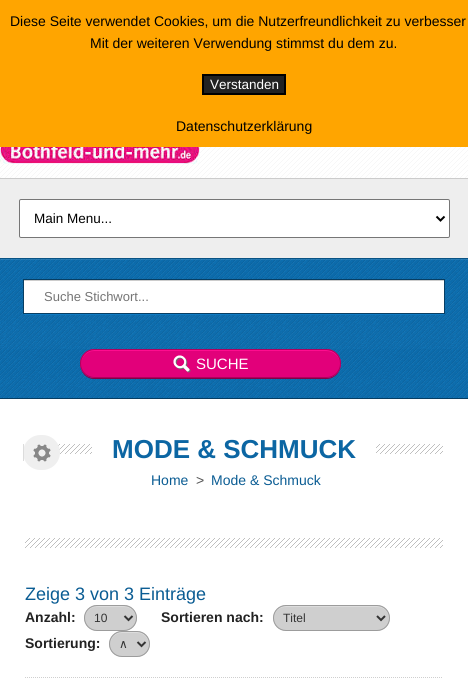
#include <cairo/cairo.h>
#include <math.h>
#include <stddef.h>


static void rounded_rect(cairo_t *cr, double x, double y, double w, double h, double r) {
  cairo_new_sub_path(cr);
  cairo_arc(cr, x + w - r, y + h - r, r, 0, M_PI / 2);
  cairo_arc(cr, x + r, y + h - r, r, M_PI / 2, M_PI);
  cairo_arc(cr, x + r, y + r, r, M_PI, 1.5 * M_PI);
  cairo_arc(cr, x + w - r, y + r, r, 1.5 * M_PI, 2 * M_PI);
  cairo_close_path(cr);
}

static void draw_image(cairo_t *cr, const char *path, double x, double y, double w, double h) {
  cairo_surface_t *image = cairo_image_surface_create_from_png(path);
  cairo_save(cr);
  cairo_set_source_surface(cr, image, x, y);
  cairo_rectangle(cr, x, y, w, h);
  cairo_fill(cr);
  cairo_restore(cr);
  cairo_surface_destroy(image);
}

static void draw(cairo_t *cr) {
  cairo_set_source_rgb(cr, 1, 1, 1);
  cairo_paint(cr);
  cairo_set_source_rgb(cr, 1, 165 / 255.0, 0);
  cairo_rectangle(cr, 0, 0, 468, 147);
  cairo_fill(cr);
  cairo_set_source_rgb(cr, 34 / 255.0, 34 / 255.0, 34 / 255.0);
  cairo_rectangle(cr, 203, 75, 82, 19);
  cairo_fill_preserve(cr);
  cairo_set_source_rgb(cr, 0, 0, 0);
  cairo_stroke(cr);
  cairo_set_source_rgb(cr, 9 / 255.0, 83 / 255.0, 132 / 255.0);
  cairo_rectangle(cr, 0, 258, 468, 1);
  cairo_fill(cr);
  draw_image(cr, "images/1.png", 0, 147, 468, 31);
  draw_image(cr, "images/2.png", 0, 147, 200, 17);
  cairo_set_source_rgb(cr, 238 / 255.0, 238 / 255.0, 238 / 255.0);
  cairo_rectangle(cr, 0, 179, 468, 79);
  cairo_fill(cr);
  cairo_set_source_rgb(cr, 204 / 255.0, 204 / 255.0, 204 / 255.0);
  cairo_rectangle(cr, 0, 178, 468, 1);
  cairo_fill(cr);
  cairo_set_source_rgb(cr, 1, 1, 1);
  rounded_rect(cr, 19.5, 199.5, 430, 38, 1.5);
  cairo_fill_preserve(cr);
  cairo_set_source_rgb(cr, 118 / 255.0, 118 / 255.0, 118 / 255.0);
  cairo_set_line_width(cr, 1);
  cairo_stroke(cr);
  cairo_new_path(cr);
  cairo_move_to(cr, 436.5, 216.5);
  cairo_line_to(cr, 440.5, 220.5);
  cairo_line_to(cr, 444.5, 216.5);
  cairo_set_source_rgb(cr, 0, 0, 0);
  cairo_set_line_width(cr, 2);
  cairo_stroke(cr);
  cairo_set_source_rgb(cr, 13 / 255.0, 116 / 255.0, 185 / 255.0);
  cairo_rectangle(cr, 0, 259, 468, 139);
  cairo_fill(cr);
  draw_image(cr, "images/3.png", 0, 259, 468, 139);
  cairo_set_source_rgba(cr, 1, 1, 1, 0.1);
  cairo_rectangle(cr, 0, 259, 468, 1);
  cairo_fill(cr);
  cairo_set_source_rgb(cr, 7 / 255.0, 62 / 255.0, 99 / 255.0);
  cairo_rectangle(cr, 0, 398, 468, 1);
  cairo_fill(cr);
  cairo_set_source_rgb(cr, 13 / 255.0, 122 / 255.0, 195 / 255.0);
  cairo_rectangle(cr, 24, 314, 420, 1);
  cairo_fill(cr);
  cairo_set_source_rgb(cr, 1, 1, 1);
  cairo_rectangle(cr, 24, 281, 420, 32);
  cairo_fill(cr);
  cairo_set_source_rgb(cr, 204 / 255.0, 204 / 255.0, 204 / 255.0);
  cairo_rectangle(cr, 24, 280, 420, 1);
  cairo_fill(cr);
  cairo_rectangle(cr, 23.5, 279.5, 421, 34);
  cairo_set_source_rgb(cr, 7 / 255.0, 62 / 255.0, 99 / 255.0);
  cairo_set_line_width(cr, 1);
  cairo_stroke(cr);
  draw_image(cr, "images/6.png", 58, 444, 385, 10);
  cairo_set_source_rgb(cr, 239 / 255.0, 239 / 255.0, 239 / 255.0);
  rounded_rect(cr, 23, 435, 37, 35, 17.5);
  cairo_fill(cr);
  draw_image(cr, "images/4.png", 33, 444, 18, 18);
  cairo_set_source_rgb(cr, 220 / 255.0, 220 / 255.0, 220 / 255.0);
  cairo_rectangle(cr, 23, 444, 1, 17);
  cairo_fill(cr);
  cairo_set_source_rgb(cr, 129 / 255.0, 0, 70 / 255.0);
  cairo_new_path(cr);
  cairo_move_to(cr, 80, 364);
  cairo_curve_to(cr, 80, 372, 86, 379, 94, 379);
  cairo_line_to(cr, 326, 379);
  cairo_curve_to(cr, 335, 379, 341, 372, 341, 364);
  cairo_curve_to(cr, 341, 372, 334, 378, 326, 378);
  cairo_line_to(cr, 94, 378);
  cairo_curve_to(cr, 87, 378, 80, 372, 80, 364);
  cairo_close_path(cr);
  cairo_fill(cr);
  cairo_set_source_rgb(cr, 226 / 255.0, 0, 122 / 255.0);
  rounded_rect(cr, 80, 349, 261, 29, 14.5);
  cairo_fill(cr);
  draw_image(cr, "images/5.png", 173, 355, 18, 18);
  cairo_set_source_rgb(cr, 1, 12 / 255.0, 143 / 255.0);
  cairo_new_path(cr);
  cairo_move_to(cr, 94, 351);
  cairo_line_to(cr, 326, 351);
  cairo_curve_to(cr, 334, 351, 340, 357, 340, 364);
  cairo_curve_to(cr, 340, 356, 334, 350, 326, 350);
  cairo_line_to(cr, 94, 350);
  cairo_curve_to(cr, 87, 350, 81, 356, 81, 364);
  cairo_curve_to(cr, 81, 357, 87, 351, 94, 351);
  cairo_close_path(cr);
  cairo_fill(cr);
  rounded_rect(cr, 80.5, 349.5, 260, 28, 14);
  cairo_set_source_rgb(cr, 175 / 255.0, 0, 94 / 255.0);
  cairo_stroke(cr);
  cairo_set_source_rgb(cr, 1, 1, 1);
  cairo_rectangle(cr, 92, 444, 284, 10);
  cairo_fill(cr);
  draw_image(cr, "images/7.png", 25, 538, 418, 10);
  cairo_new_path(cr);
  cairo_move_to(cr, 25, 677.5);
  cairo_line_to(cr, 443, 677.5);
  cairo_set_source_rgb(cr, 207 / 255.0, 207 / 255.0, 207 / 255.0);
  cairo_set_dash(cr, (double[]){1, 1}, 2, 0);
  cairo_stroke(cr);
  rounded_rect(cr, 84, 605, 53, 26, 13);
  cairo_fill(cr);
  cairo_set_source_rgb(cr, 221 / 255.0, 221 / 255.0, 221 / 255.0);
  cairo_new_path(cr);
  cairo_move_to(cr, 97, 607);
  cairo_line_to(cr, 124, 607);
  cairo_curve_to(cr, 131, 607, 136, 612, 136, 618);
  cairo_curve_to(cr, 137, 604, 120, 606, 110, 606);
  cairo_curve_to(cr, 101, 606, 84, 604, 85, 618);
  cairo_curve_to(cr, 85, 612, 90, 607, 97, 607);
  cairo_close_path(cr);
  cairo_fill(cr);
  rounded_rect(cr, 84.5, 605.5, 52, 25, 12.5);
  cairo_set_source_rgb(cr, 156 / 255.0, 156 / 255.0, 156 / 255.0);
  cairo_set_dash(cr, NULL, 0, 0);
  cairo_stroke(cr);
  cairo_new_path(cr);
  cairo_move_to(cr, 124.5, 616);
  cairo_line_to(cr, 128.5, 620);
  cairo_line_to(cr, 132.5, 616);
  cairo_set_source_rgb(cr, 51 / 255.0, 51 / 255.0, 51 / 255.0);
  cairo_set_line_width(cr, 2);
  cairo_stroke(cr);
  cairo_set_source_rgb(cr, 207 / 255.0, 207 / 255.0, 207 / 255.0);
  rounded_rect(cr, 273, 605, 117, 26, 13);
  cairo_fill(cr);
  cairo_set_source_rgb(cr, 221 / 255.0, 221 / 255.0, 221 / 255.0);
  cairo_new_path(cr);
  cairo_move_to(cr, 286, 607);
  cairo_line_to(cr, 377, 607);
  cairo_curve_to(cr, 384, 607, 389, 612, 389, 618);
  cairo_curve_to(cr, 390, 603, 371, 606, 362, 606);
  cairo_line_to(cr, 301, 606);
  cairo_curve_to(cr, 292, 606, 273, 603, 274, 618);
  cairo_curve_to(cr, 274, 612, 279, 607, 286, 607);
  cairo_close_path(cr);
  cairo_fill(cr);
  rounded_rect(cr, 273.5, 605.5, 116, 25, 12.5);
  cairo_set_source_rgb(cr, 156 / 255.0, 156 / 255.0, 156 / 255.0);
  cairo_set_line_width(cr, 1);
  cairo_stroke(cr);
  cairo_new_path(cr);
  cairo_move_to(cr, 377, 616);
  cairo_line_to(cr, 381, 620);
  cairo_line_to(cr, 385, 616);
  cairo_set_source_rgb(cr, 51 / 255.0, 51 / 255.0, 51 / 255.0);
  cairo_set_line_width(cr, 2);
  cairo_stroke(cr);
  cairo_set_source_rgb(cr, 207 / 255.0, 207 / 255.0, 207 / 255.0);
  rounded_rect(cr, 109, 631, 41, 26, 13);
  cairo_fill(cr);
  cairo_set_source_rgb(cr, 221 / 255.0, 221 / 255.0, 221 / 255.0);
  cairo_new_path(cr);
  cairo_move_to(cr, 122, 633);
  cairo_line_to(cr, 137, 633);
  cairo_curve_to(cr, 144, 633, 148.5, 638, 149, 644.5);
  cairo_curve_to(cr, 149, 638.5, 145, 633.5, 139.5, 632);
  cairo_line_to(cr, 129.5, 632);
  cairo_line_to(cr, 119.5, 632);
  cairo_curve_to(cr, 114, 633.5, 110, 638.5, 110, 644.5);
  cairo_curve_to(cr, 110.5, 638, 115, 633, 122, 633);
  cairo_close_path(cr);
  cairo_fill(cr);
  rounded_rect(cr, 109.5, 631.5, 40, 25, 12.5);
  cairo_set_source_rgb(cr, 156 / 255.0, 156 / 255.0, 156 / 255.0);
  cairo_set_line_width(cr, 1);
  cairo_stroke(cr);
  cairo_new_path(cr);
  cairo_move_to(cr, 137.5, 642);
  cairo_line_to(cr, 141.5, 646);
  cairo_line_to(cr, 145.5, 642);
  cairo_set_source_rgb(cr, 51 / 255.0, 51 / 255.0, 51 / 255.0);
  cairo_set_line_width(cr, 2);
  cairo_stroke(cr);
  cairo_select_font_face(cr, "Liberation Sans", CAIRO_FONT_SLANT_NORMAL, CAIRO_FONT_WEIGHT_NORMAL);
  cairo_set_font_size(cr, 14);
  cairo_set_source_rgb(cr, 0, 0, 0);
  cairo_move_to(cr, 10, 26);
  cairo_show_text(cr, "Diese Seite verwendet Cookies, um die Nutzerfreundlichkeit zu verbesser");
  cairo_move_to(cr, 90, 48);
  cairo_show_text(cr, "Mit der weiteren Verwendung stimmst du dem zu.");
  cairo_set_font_size(cr, 13.5);
  cairo_set_source_rgb(cr, 1, 1, 1);
  cairo_move_to(cr, 210, 89);
  cairo_show_text(cr, "Verstanden");
  cairo_set_font_size(cr, 14);
  cairo_set_source_rgb(cr, 0, 0, 0);
  cairo_move_to(cr, 176, 131);
  cairo_show_text(cr, "Datenschutzerklärung");
  cairo_set_font_size(cr, 13.5);
  cairo_move_to(cr, 34, 223);
  cairo_show_text(cr, "Main Menu...");
  cairo_set_font_size(cr, 13);
  cairo_set_source_rgb(cr, 117 / 255.0, 117 / 255.0, 117 / 255.0);
  cairo_move_to(cr, 44, 301);
  cairo_show_text(cr, "Suche Stichwort...");
  cairo_set_font_size(cr, 15);
  cairo_set_source_rgb(cr, 1, 1, 1);
  cairo_move_to(cr, 196, 369);
  cairo_show_text(cr, "SUCHE");
  cairo_select_font_face(cr, "Liberation Sans", CAIRO_FONT_SLANT_NORMAL, CAIRO_FONT_WEIGHT_BOLD);
  cairo_set_font_size(cr, 26);
  cairo_set_source_rgb(cr, 12 / 255.0, 102 / 255.0, 163 / 255.0);
  cairo_move_to(cr, 112, 458);
  cairo_show_text(cr, "MODE & SCHMUCK");
  cairo_select_font_face(cr, "Liberation Sans", CAIRO_FONT_SLANT_NORMAL, CAIRO_FONT_WEIGHT_NORMAL);
  cairo_set_font_size(cr, 14);
  cairo_set_source_rgb(cr, 10 / 255.0, 92 / 255.0, 147 / 255.0);
  cairo_move_to(cr, 151, 485);
  cairo_show_text(cr, "Home");
  cairo_set_source_rgb(cr, 84 / 255.0, 84 / 255.0, 84 / 255.0);
  cairo_move_to(cr, 196, 485);
  cairo_show_text(cr, ">");
  cairo_set_source_rgb(cr, 10 / 255.0, 92 / 255.0, 147 / 255.0);
  cairo_move_to(cr, 211, 485);
  cairo_show_text(cr, "Mode & Schmuck");
  cairo_set_font_size(cr, 18);
  cairo_move_to(cr, 25, 600);
  cairo_show_text(cr, "Zeige 3 von 3 Einträge");
  cairo_select_font_face(cr, "Liberation Sans", CAIRO_FONT_SLANT_NORMAL, CAIRO_FONT_WEIGHT_BOLD);
  cairo_set_font_size(cr, 14);
  cairo_set_source_rgb(cr, 34 / 255.0, 34 / 255.0, 34 / 255.0);
  cairo_move_to(cr, 25, 622);
  cairo_show_text(cr, "Anzahl:");
  cairo_select_font_face(cr, "Liberation Sans", CAIRO_FONT_SLANT_NORMAL, CAIRO_FONT_WEIGHT_NORMAL);
  cairo_set_font_size(cr, 12);
  cairo_set_source_rgb(cr, 51 / 255.0, 51 / 255.0, 51 / 255.0);
  cairo_move_to(cr, 94, 622);
  cairo_show_text(cr, "10");
  cairo_select_font_face(cr, "Liberation Sans", CAIRO_FONT_SLANT_NORMAL, CAIRO_FONT_WEIGHT_BOLD);
  cairo_set_font_size(cr, 14);
  cairo_set_source_rgb(cr, 34 / 255.0, 34 / 255.0, 34 / 255.0);
  cairo_move_to(cr, 161, 622);
  cairo_show_text(cr, "Sortieren nach:");
  cairo_select_font_face(cr, "Liberation Sans", CAIRO_FONT_SLANT_NORMAL, CAIRO_FONT_WEIGHT_NORMAL);
  cairo_set_font_size(cr, 12);
  cairo_set_source_rgb(cr, 51 / 255.0, 51 / 255.0, 51 / 255.0);
  cairo_move_to(cr, 283, 622);
  cairo_show_text(cr, "Titel");
  cairo_select_font_face(cr, "Liberation Sans", CAIRO_FONT_SLANT_NORMAL, CAIRO_FONT_WEIGHT_BOLD);
  cairo_set_font_size(cr, 14);
  cairo_set_source_rgb(cr, 34 / 255.0, 34 / 255.0, 34 / 255.0);
  cairo_move_to(cr, 25, 648);
  cairo_show_text(cr, "Sortierung:");
  cairo_select_font_face(cr, "DejaVu Sans", CAIRO_FONT_SLANT_NORMAL, CAIRO_FONT_WEIGHT_NORMAL);
  cairo_set_font_size(cr, 12);
  cairo_set_source_rgb(cr, 51 / 255.0, 51 / 255.0, 51 / 255.0);
  cairo_move_to(cr, 119, 648);
  cairo_show_text(cr, "∧");
}

int main(void) {
  cairo_surface_t *surface = cairo_image_surface_create(CAIRO_FORMAT_RGB24, 468, 694);
  cairo_t *cr = cairo_create(surface);
  cairo_font_options_t *options = cairo_font_options_create();
  cairo_font_options_set_hint_metrics(options, CAIRO_HINT_METRICS_OFF);
  cairo_font_options_set_hint_style(options, CAIRO_HINT_STYLE_NONE);
  cairo_set_font_options(cr, options);
  cairo_set_miter_limit(cr, 4);
  draw(cr);
  cairo_surface_write_to_png(surface, "out.png");
  cairo_font_options_destroy(options);
  cairo_destroy(cr);
  cairo_surface_destroy(surface);
  return 0;
}
